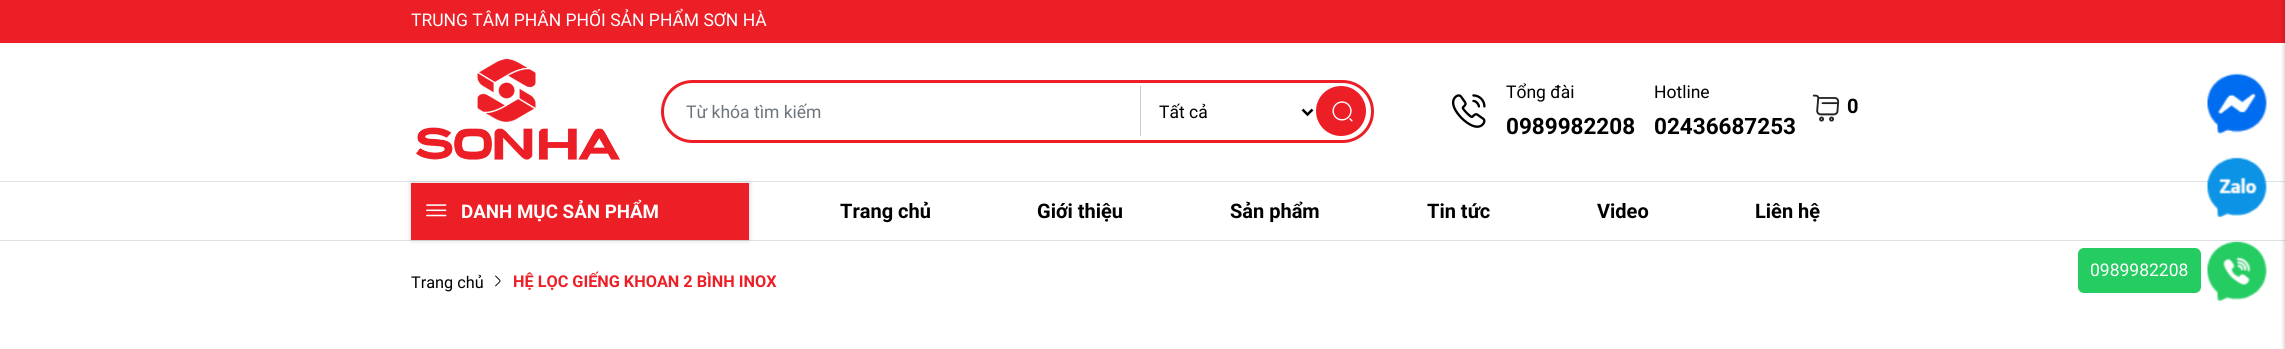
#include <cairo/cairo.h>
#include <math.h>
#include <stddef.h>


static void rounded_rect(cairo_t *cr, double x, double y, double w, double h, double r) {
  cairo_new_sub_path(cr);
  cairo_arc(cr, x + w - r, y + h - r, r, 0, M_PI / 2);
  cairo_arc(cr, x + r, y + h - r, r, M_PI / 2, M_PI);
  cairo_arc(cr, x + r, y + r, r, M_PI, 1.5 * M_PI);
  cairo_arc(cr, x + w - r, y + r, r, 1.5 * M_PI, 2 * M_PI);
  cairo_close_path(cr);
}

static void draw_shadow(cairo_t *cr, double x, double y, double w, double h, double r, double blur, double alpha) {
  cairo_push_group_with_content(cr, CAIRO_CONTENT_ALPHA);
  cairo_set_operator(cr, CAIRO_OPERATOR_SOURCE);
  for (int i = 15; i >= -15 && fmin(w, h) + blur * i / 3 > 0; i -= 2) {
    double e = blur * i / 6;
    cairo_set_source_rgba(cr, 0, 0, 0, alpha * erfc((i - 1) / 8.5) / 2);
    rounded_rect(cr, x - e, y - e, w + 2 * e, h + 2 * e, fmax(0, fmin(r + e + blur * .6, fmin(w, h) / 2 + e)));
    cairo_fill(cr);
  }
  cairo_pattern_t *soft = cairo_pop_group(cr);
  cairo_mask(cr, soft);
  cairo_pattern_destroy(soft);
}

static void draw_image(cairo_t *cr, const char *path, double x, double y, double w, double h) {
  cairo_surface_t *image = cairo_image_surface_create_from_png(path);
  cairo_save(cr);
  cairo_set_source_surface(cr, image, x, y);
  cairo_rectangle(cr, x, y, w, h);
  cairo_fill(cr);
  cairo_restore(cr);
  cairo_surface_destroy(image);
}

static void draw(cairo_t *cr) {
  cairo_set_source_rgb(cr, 1, 1, 1);
  cairo_paint(cr);
  cairo_set_source_rgb(cr, 236 / 255.0, 31 / 255.0, 39 / 255.0);
  cairo_rectangle(cr, 0, 0, 2285, 43);
  cairo_fill(cr);
  draw_image(cr, "images/1.png", 416, 58, 204, 102);
  rounded_rect(cr, 662.5, 81.5, 710, 60, 30);
  cairo_set_line_width(cr, 3);
  cairo_stroke(cr);
  cairo_set_source_rgb(cr, 204 / 255.0, 204 / 255.0, 204 / 255.0);
  cairo_rectangle(cr, 1140, 86, 1, 50);
  cairo_fill(cr);
  cairo_new_path(cr);
  cairo_move_to(cr, 1302.5, 109.5);
  cairo_line_to(cr, 1307.5, 114.5);
  cairo_line_to(cr, 1312.5, 109.5);
  cairo_set_source_rgb(cr, 0, 0, 0);
  cairo_set_line_width(cr, 2.5);
  cairo_stroke(cr);
  cairo_set_source_rgb(cr, 236 / 255.0, 31 / 255.0, 39 / 255.0);
  cairo_arc(cr, 1341, 111, 25, 0, 2 * M_PI);
  cairo_fill(cr);
  draw_image(cr, "images/2.png", 1332, 101, 21, 21);
  draw_image(cr, "images/3.png", 1451, 94, 35, 34);
  draw_image(cr, "images/4.png", 1812, 94, 28, 28);
  cairo_set_source_rgb(cr, 222 / 255.0, 226 / 255.0, 230 / 255.0);
  cairo_rectangle(cr, 0, 181, 2285, 1);
  cairo_fill(cr);
  cairo_rectangle(cr, 0, 240, 2285, 1);
  cairo_fill(cr);
  cairo_set_source_rgb(cr, 0, 0, 0);
  draw_shadow(cr, 411, 183, 338, 57, 0, 2.5, 0.2);
  cairo_set_source_rgb(cr, 236 / 255.0, 31 / 255.0, 39 / 255.0);
  cairo_rectangle(cr, 411, 183, 338, 57);
  cairo_fill(cr);
  draw_image(cr, "images/5.png", 426, 204, 21, 13);
  cairo_set_source_rgb(cr, 0, 0, 0);
  draw_shadow(cr, 2284, 0, 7, 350, 0, 2, 0.2);
  draw_image(cr, "images/6.png", 495, 275, 6, 12);
  draw_image(cr, "images/7.png", 2207, 73, 60, 61);
  draw_image(cr, "images/8.png", 2207, 157, 60, 61);
  cairo_set_source_rgb(cr, 37 / 255.0, 204 / 255.0, 98 / 255.0);
  rounded_rect(cr, 2078, 248, 123, 45, 6);
  cairo_fill(cr);
  draw_image(cr, "images/9.png", 2207, 241, 60, 60);
  cairo_select_font_face(cr, "Roboto", CAIRO_FONT_SLANT_NORMAL, CAIRO_FONT_WEIGHT_NORMAL);
  cairo_set_font_size(cr, 17.5);
  cairo_set_source_rgb(cr, 1, 1, 1);
  cairo_move_to(cr, 411, 26);
  cairo_show_text(cr, "TRUNG TÂM PHÂN PHỐI SẢN PHẨM SƠN HÀ");
  cairo_set_source_rgb(cr, 108 / 255.0, 117 / 255.0, 125 / 255.0);
  cairo_move_to(cr, 686, 118);
  cairo_show_text(cr, "Từ khóa tìm kiếm");
  cairo_set_source_rgb(cr, 0, 0, 0);
  cairo_move_to(cr, 1159, 118);
  cairo_show_text(cr, "Tất cả");
  cairo_move_to(cr, 1506, 98);
  cairo_show_text(cr, "Tổng đài");
  cairo_select_font_face(cr, "Roboto", CAIRO_FONT_SLANT_NORMAL, CAIRO_FONT_WEIGHT_BOLD);
  cairo_set_font_size(cr, 22.5);
  cairo_move_to(cr, 1506, 134);
  cairo_show_text(cr, "0989982208");
  cairo_select_font_face(cr, "Roboto", CAIRO_FONT_SLANT_NORMAL, CAIRO_FONT_WEIGHT_NORMAL);
  cairo_set_font_size(cr, 17.5);
  cairo_move_to(cr, 1654, 98);
  cairo_show_text(cr, "Hotline");
  cairo_select_font_face(cr, "Roboto", CAIRO_FONT_SLANT_NORMAL, CAIRO_FONT_WEIGHT_BOLD);
  cairo_set_font_size(cr, 22.5);
  cairo_move_to(cr, 1654, 134);
  cairo_show_text(cr, "02436687253");
  cairo_set_font_size(cr, 20);
  cairo_move_to(cr, 1847, 113);
  cairo_show_text(cr, "0");
  cairo_set_font_size(cr, 18.75);
  cairo_set_source_rgb(cr, 1, 1, 1);
  cairo_move_to(cr, 461, 218);
  cairo_show_text(cr, "DANH MỤC SẢN PHẨM");
  cairo_set_font_size(cr, 20);
  cairo_set_source_rgb(cr, 0, 0, 0);
  cairo_move_to(cr, 840, 218);
  cairo_show_text(cr, "Trang chủ");
  cairo_move_to(cr, 1037, 218);
  cairo_show_text(cr, "Giới thiệu");
  cairo_move_to(cr, 1230, 218);
  cairo_show_text(cr, "Sản phẩm");
  cairo_move_to(cr, 1427, 218);
  cairo_show_text(cr, "Tin tức");
  cairo_move_to(cr, 1597, 218);
  cairo_show_text(cr, "Video");
  cairo_move_to(cr, 1755, 218);
  cairo_show_text(cr, "Liên hệ");
  cairo_select_font_face(cr, "Roboto", CAIRO_FONT_SLANT_NORMAL, CAIRO_FONT_WEIGHT_NORMAL);
  cairo_set_font_size(cr, 16.25);
  cairo_move_to(cr, 411, 288);
  cairo_show_text(cr, "Trang chủ");
  cairo_select_font_face(cr, "Roboto", CAIRO_FONT_SLANT_NORMAL, CAIRO_FONT_WEIGHT_BOLD);
  cairo_set_source_rgb(cr, 236 / 255.0, 31 / 255.0, 39 / 255.0);
  cairo_move_to(cr, 513, 287);
  cairo_show_text(cr, "HỆ LỌC GIẾNG KHOAN 2 BÌNH INOX");
  cairo_select_font_face(cr, "Roboto", CAIRO_FONT_SLANT_NORMAL, CAIRO_FONT_WEIGHT_NORMAL);
  cairo_set_font_size(cr, 17.5);
  cairo_set_source_rgb(cr, 1, 1, 1);
  cairo_move_to(cr, 2090, 276);
  cairo_show_text(cr, "0989982208");
}

int main(void) {
  cairo_surface_t *surface = cairo_image_surface_create(CAIRO_FORMAT_RGB24, 2285, 349);
  cairo_t *cr = cairo_create(surface);
  cairo_font_options_t *options = cairo_font_options_create();
  cairo_font_options_set_hint_metrics(options, CAIRO_HINT_METRICS_OFF);
  cairo_font_options_set_hint_style(options, CAIRO_HINT_STYLE_NONE);
  cairo_set_font_options(cr, options);
  cairo_set_miter_limit(cr, 4);
  draw(cr);
  cairo_surface_write_to_png(surface, "out.png");
  cairo_font_options_destroy(options);
  cairo_destroy(cr);
  cairo_surface_destroy(surface);
  return 0;
}
